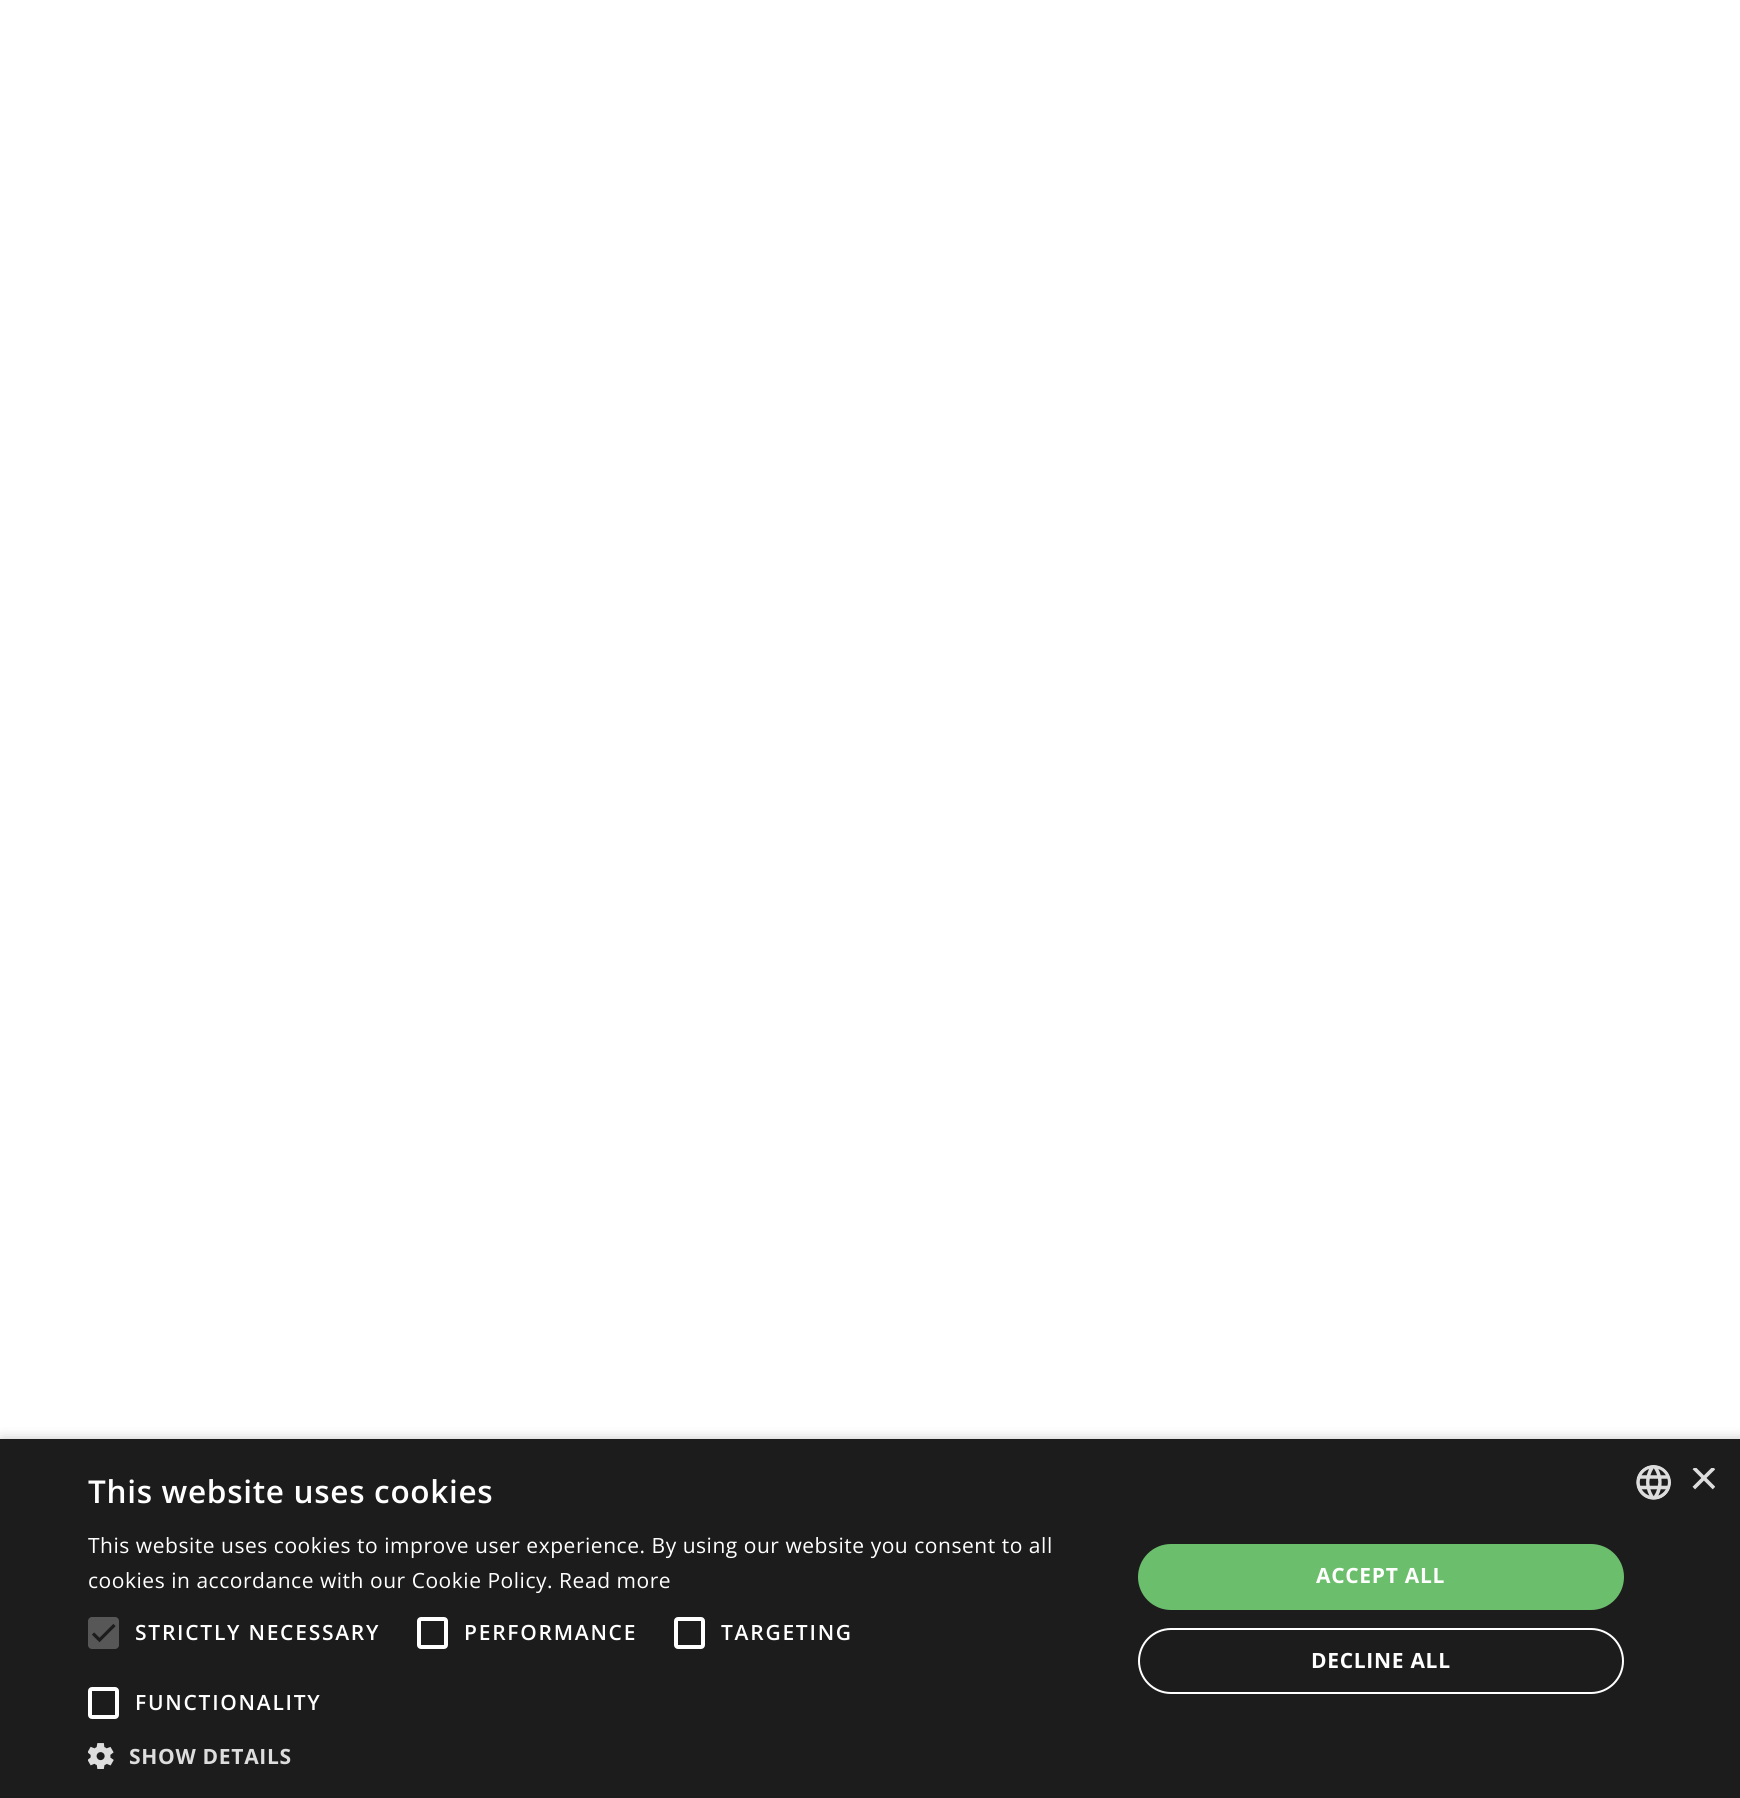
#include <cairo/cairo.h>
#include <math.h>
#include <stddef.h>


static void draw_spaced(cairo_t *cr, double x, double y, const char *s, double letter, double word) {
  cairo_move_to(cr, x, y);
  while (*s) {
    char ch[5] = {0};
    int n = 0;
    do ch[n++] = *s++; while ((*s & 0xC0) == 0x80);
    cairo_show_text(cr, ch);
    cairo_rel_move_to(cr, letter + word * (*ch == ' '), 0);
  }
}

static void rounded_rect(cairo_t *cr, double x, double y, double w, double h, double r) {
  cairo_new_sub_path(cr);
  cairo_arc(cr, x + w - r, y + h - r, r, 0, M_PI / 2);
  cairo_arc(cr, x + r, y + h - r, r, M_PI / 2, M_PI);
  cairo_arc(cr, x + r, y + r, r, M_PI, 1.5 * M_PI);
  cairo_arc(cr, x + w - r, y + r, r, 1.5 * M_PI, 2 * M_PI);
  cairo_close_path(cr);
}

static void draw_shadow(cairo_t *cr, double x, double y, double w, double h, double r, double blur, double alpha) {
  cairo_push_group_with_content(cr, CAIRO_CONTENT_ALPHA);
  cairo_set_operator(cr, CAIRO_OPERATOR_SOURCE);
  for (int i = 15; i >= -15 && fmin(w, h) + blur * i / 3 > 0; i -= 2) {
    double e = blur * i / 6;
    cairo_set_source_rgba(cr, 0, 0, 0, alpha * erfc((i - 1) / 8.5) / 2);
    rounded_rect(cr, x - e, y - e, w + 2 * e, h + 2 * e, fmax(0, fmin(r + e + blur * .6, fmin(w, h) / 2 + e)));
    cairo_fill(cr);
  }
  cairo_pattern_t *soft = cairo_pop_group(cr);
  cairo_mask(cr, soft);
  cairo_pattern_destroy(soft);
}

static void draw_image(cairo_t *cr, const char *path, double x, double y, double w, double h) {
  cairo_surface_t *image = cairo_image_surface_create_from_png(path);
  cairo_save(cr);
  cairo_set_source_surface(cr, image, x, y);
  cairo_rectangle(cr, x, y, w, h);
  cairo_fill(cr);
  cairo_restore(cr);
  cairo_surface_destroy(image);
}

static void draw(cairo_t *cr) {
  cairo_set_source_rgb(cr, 1, 1, 1);
  cairo_paint(cr);
  cairo_set_source_rgb(cr, 0, 0, 0);
  draw_shadow(cr, 2, 1442, 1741, 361, 0, 7, 0.35);
  cairo_set_source_rgb(cr, 28 / 255.0, 28 / 255.0, 28 / 255.0);
  cairo_rectangle(cr, 0, 1439, 1740, 359);
  cairo_fill(cr);
  cairo_set_source_rgb(cr, 87 / 255.0, 87 / 255.0, 87 / 255.0);
  rounded_rect(cr, 88, 1617, 31, 32, 4);
  cairo_fill(cr);
  cairo_new_path(cr);
  cairo_move_to(cr, 93, 1633.5);
  cairo_line_to(cr, 99.5, 1640);
  cairo_line_to(cr, 114.5, 1625);
  cairo_set_source_rgb(cr, 28 / 255.0, 28 / 255.0, 28 / 255.0);
  cairo_set_line_width(cr, 3.2);
  cairo_stroke(cr);
  rounded_rect(cr, 419, 1619, 27, 28, 2);
  cairo_set_source_rgb(cr, 1, 1, 1);
  cairo_set_line_width(cr, 4);
  cairo_stroke(cr);
  rounded_rect(cr, 676, 1619, 27, 28, 2);
  cairo_stroke(cr);
  rounded_rect(cr, 90, 1689, 27, 28, 2);
  cairo_stroke(cr);
  draw_image(cr, "images/1.png", 88, 1743, 26, 26);
  cairo_set_source_rgb(cr, 107 / 255.0, 190 / 255.0, 107 / 255.0);
  rounded_rect(cr, 1138, 1544, 486, 66, 33);
  cairo_fill(cr);
  rounded_rect(cr, 1139, 1629, 484, 64, 32);
  cairo_set_source_rgb(cr, 1, 1, 1);
  cairo_set_line_width(cr, 2);
  cairo_stroke(cr);
  draw_image(cr, "images/2.png", 1636, 1465, 35, 35);
  cairo_select_font_face(cr, "Open Sans SemiBold", CAIRO_FONT_SLANT_NORMAL, CAIRO_FONT_WEIGHT_NORMAL);
  cairo_set_font_size(cr, 31.5);
  draw_spaced(cr, 88, 1503, "This website uses cookies", 0.7, 0);
  cairo_select_font_face(cr, "Open Sans", CAIRO_FONT_SLANT_NORMAL, CAIRO_FONT_WEIGHT_NORMAL);
  cairo_set_font_size(cr, 21);
  draw_spaced(cr, 88, 1553, "This website uses cookies to improve user experience. By using our website you consent to all", 0.53, 0);
  draw_spaced(cr, 88, 1588, "cookies in accordance with our Cookie Policy. Read more", 0.53, 0);
  cairo_select_font_face(cr, "Open Sans SemiBold", CAIRO_FONT_SLANT_NORMAL, CAIRO_FONT_WEIGHT_NORMAL);
  draw_spaced(cr, 135, 1640, "STRICTLY NECESSARY", 1.75, 0);
  draw_spaced(cr, 464, 1640, "PERFORMANCE", 1.75, 0);
  draw_spaced(cr, 721, 1640, "TARGETING", 1.75, 0);
  draw_spaced(cr, 135, 1710, "FUNCTIONALITY", 1.75, 0);
  cairo_select_font_face(cr, "Open Sans", CAIRO_FONT_SLANT_NORMAL, CAIRO_FONT_WEIGHT_BOLD);
  cairo_set_source_rgb(cr, 221 / 255.0, 221 / 255.0, 221 / 255.0);
  draw_spaced(cr, 129, 1764, "SHOW DETAILS", 0.7, 0);
  cairo_set_source_rgb(cr, 1, 1, 1);
  draw_spaced(cr, 1316, 1583, "ACCEPT ALL", 0.7, 0);
  draw_spaced(cr, 1311, 1668, "DECLINE ALL", 0.7, 0);
  cairo_save(cr);
  cairo_rectangle(cr, 1689, 1468, 26, 27);
  cairo_clip(cr);
  cairo_select_font_face(cr, "Liberation Sans", CAIRO_FONT_SLANT_NORMAL, CAIRO_FONT_WEIGHT_NORMAL);
  cairo_set_font_size(cr, 51);
  cairo_set_source_rgb(cr, 221 / 255.0, 221 / 255.0, 221 / 255.0);
  cairo_move_to(cr, 1689, 1495);
  cairo_show_text(cr, "×");
  cairo_restore(cr);
}

int main(void) {
  cairo_surface_t *surface = cairo_image_surface_create(CAIRO_FORMAT_RGB24, 1740, 1798);
  cairo_t *cr = cairo_create(surface);
  cairo_font_options_t *options = cairo_font_options_create();
  cairo_font_options_set_hint_metrics(options, CAIRO_HINT_METRICS_OFF);
  cairo_font_options_set_hint_style(options, CAIRO_HINT_STYLE_NONE);
  cairo_set_font_options(cr, options);
  cairo_set_miter_limit(cr, 4);
  draw(cr);
  cairo_surface_write_to_png(surface, "out.png");
  cairo_font_options_destroy(options);
  cairo_destroy(cr);
  cairo_surface_destroy(surface);
  return 0;
}
